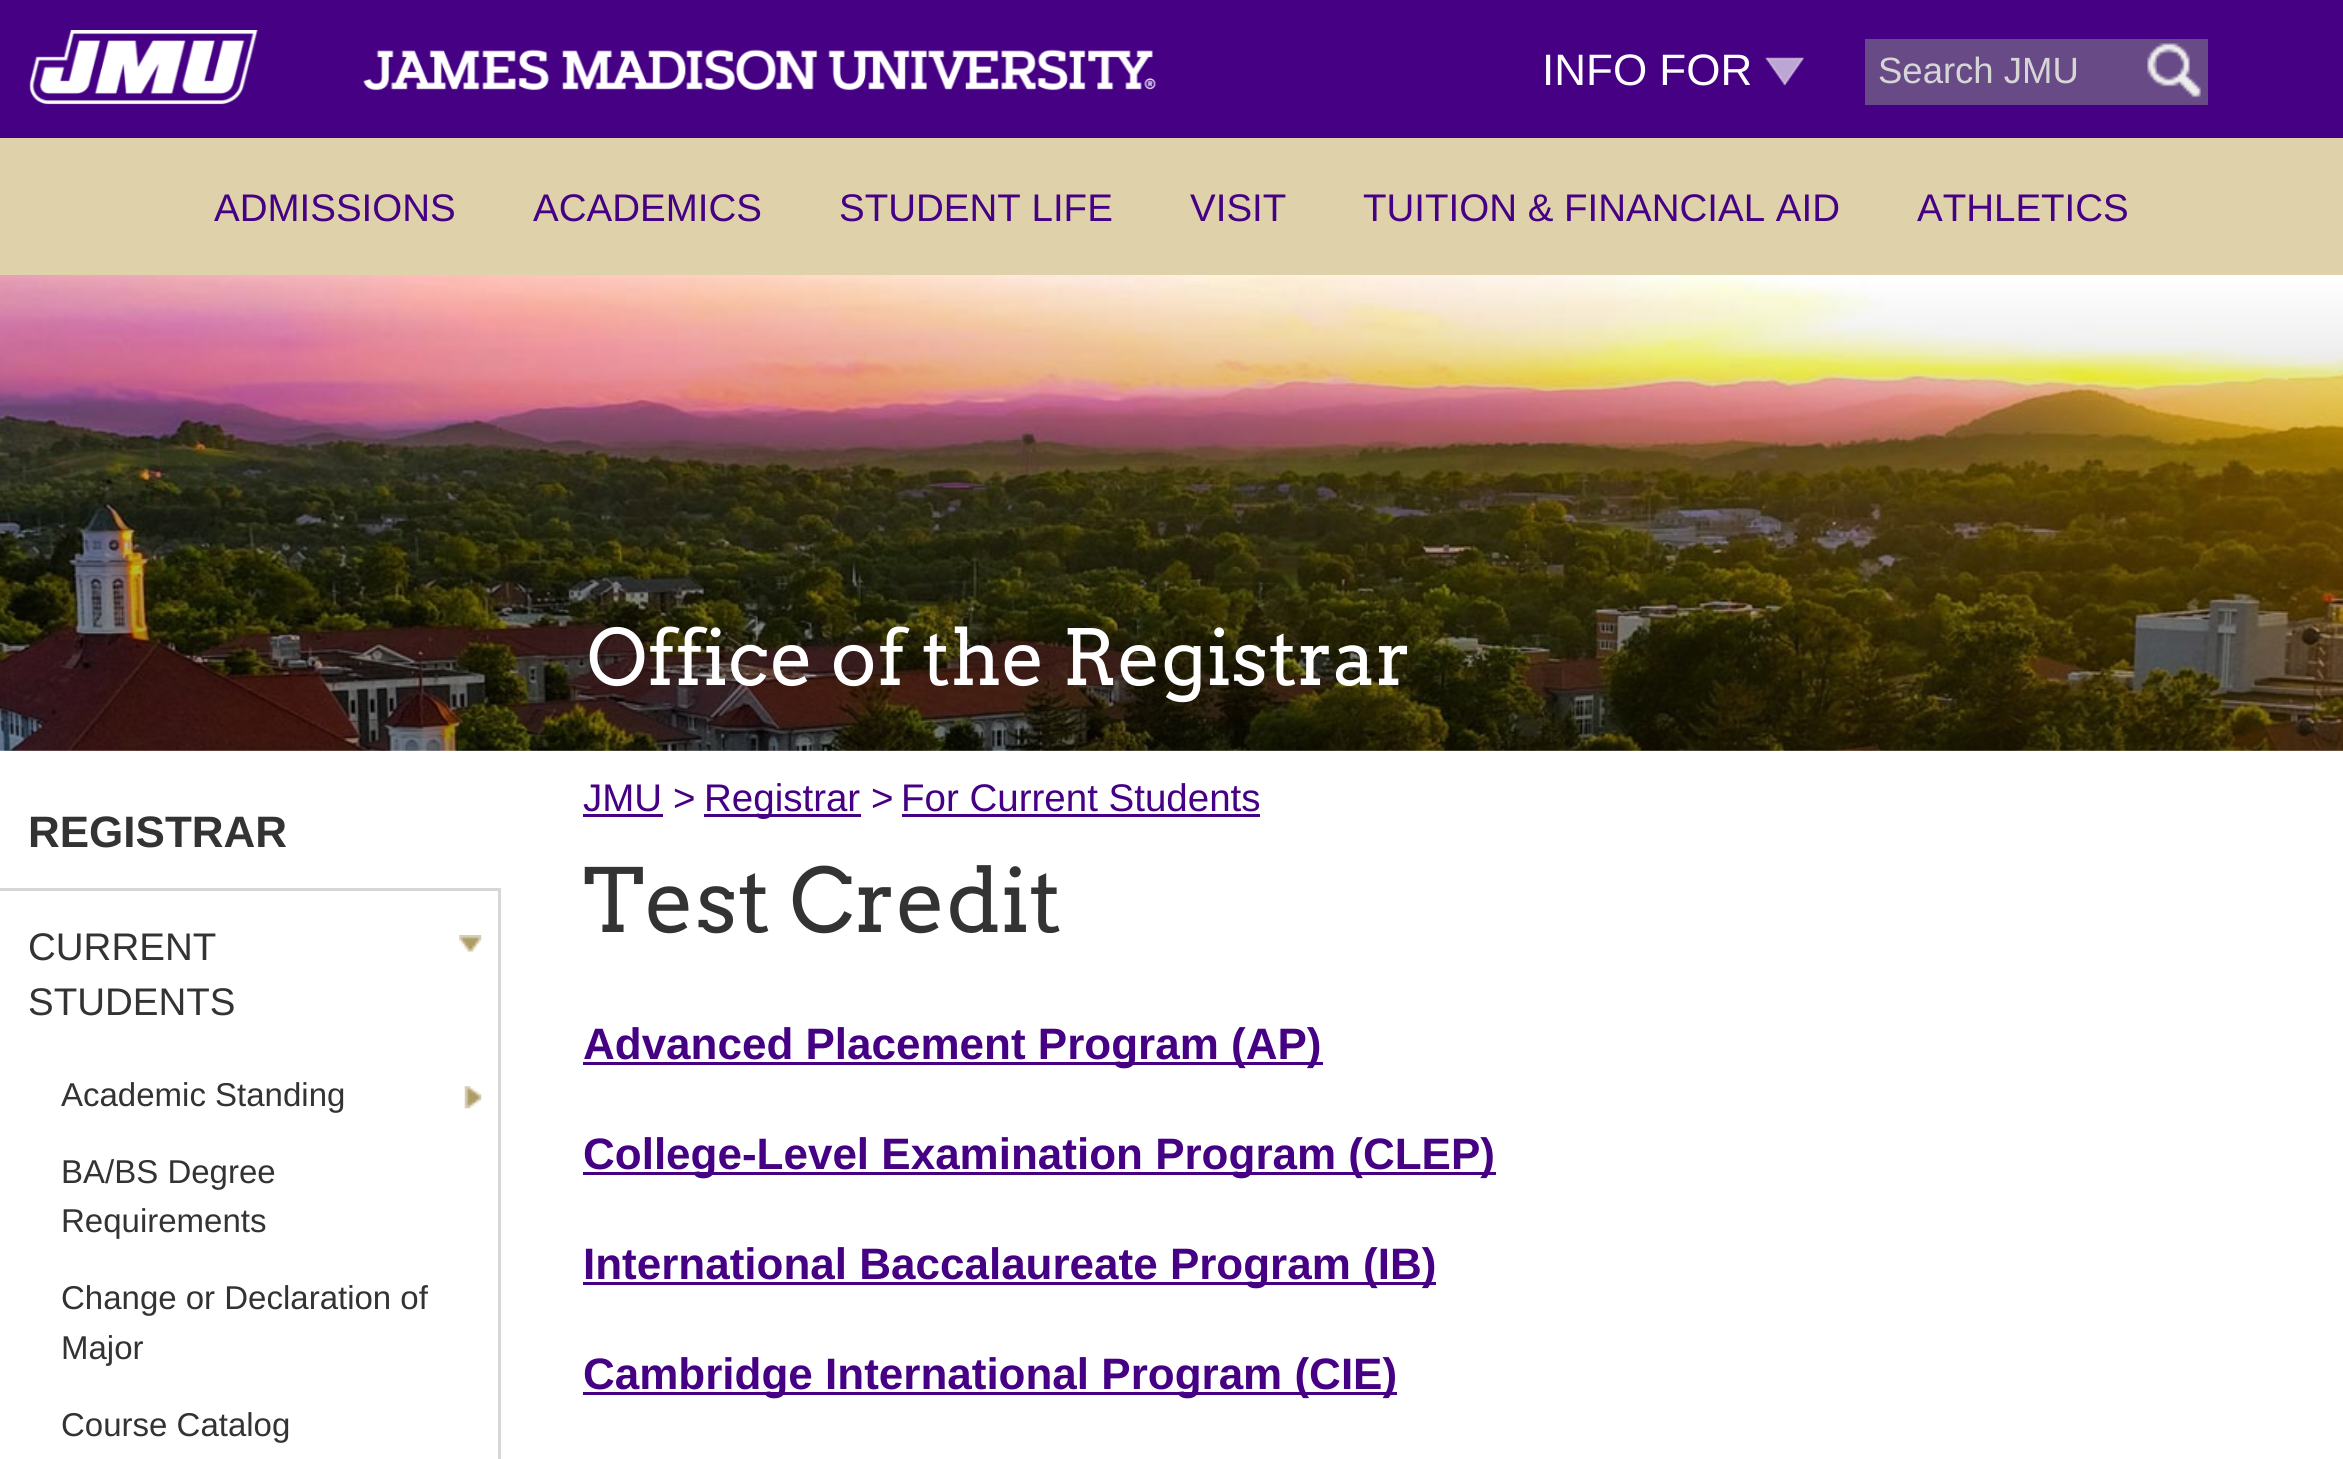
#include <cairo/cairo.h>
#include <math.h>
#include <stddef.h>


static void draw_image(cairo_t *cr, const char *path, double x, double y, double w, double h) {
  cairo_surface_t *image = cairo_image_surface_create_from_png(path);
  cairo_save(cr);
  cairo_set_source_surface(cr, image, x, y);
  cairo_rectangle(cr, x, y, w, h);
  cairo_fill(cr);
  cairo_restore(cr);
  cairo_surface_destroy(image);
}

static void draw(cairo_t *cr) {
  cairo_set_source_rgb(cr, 1, 1, 1);
  cairo_paint(cr);
  cairo_set_source_rgb(cr, 69 / 255.0, 0, 132 / 255.0);
  cairo_rectangle(cr, 0, 0, 2343, 138);
  cairo_fill(cr);
  draw_image(cr, "images/1.png", 29, 30, 1127, 75);
  draw_image(cr, "images/2.png", 1765, 57, 39, 29);
  cairo_set_source_rgb(cr, 104 / 255.0, 75 / 255.0, 134 / 255.0);
  cairo_rectangle(cr, 1865, 39, 343, 66);
  cairo_fill(cr);
  draw_image(cr, "images/3.png", 2147, 43, 54, 55);
  cairo_set_source_rgb(cr, 223 / 255.0, 210 / 255.0, 170 / 255.0);
  cairo_rectangle(cr, 0, 138, 2343, 137);
  cairo_fill(cr);
  draw_image(cr, "images/4.png", 0, 275, 2343, 476);
  cairo_set_source_rgb(cr, 214 / 255.0, 214 / 255.0, 214 / 255.0);
  cairo_rectangle(cr, 0, 888, 501, 3);
  cairo_fill(cr);
  draw_image(cr, "images/5.png", 459, 935, 23, 17);
  cairo_rectangle(cr, 498, 891, 3, 568);
  cairo_fill(cr);
  draw_image(cr, "images/6.png", 464, 1086, 18, 23);
  cairo_set_source_rgb(cr, 69 / 255.0, 0, 132 / 255.0);
  cairo_rectangle(cr, 583, 814, 80, 3);
  cairo_fill(cr);
  cairo_rectangle(cr, 704, 814, 157, 3);
  cairo_fill(cr);
  cairo_rectangle(cr, 902, 814, 358, 3);
  cairo_fill(cr);
  cairo_rectangle(cr, 583, 1062, 740, 3);
  cairo_fill(cr);
  cairo_rectangle(cr, 583, 1172, 913, 3);
  cairo_fill(cr);
  cairo_rectangle(cr, 583, 1282, 853, 3);
  cairo_fill(cr);
  cairo_rectangle(cr, 583, 1392, 814, 3);
  cairo_fill(cr);
  cairo_select_font_face(cr, "Liberation Sans", CAIRO_FONT_SLANT_NORMAL, CAIRO_FONT_WEIGHT_NORMAL);
  cairo_set_font_size(cr, 44);
  cairo_set_source_rgb(cr, 1, 1, 1);
  cairo_move_to(cr, 1542, 85);
  cairo_show_text(cr, "INFO FOR");
  cairo_set_font_size(cr, 36.5);
  cairo_set_source_rgb(cr, 214 / 255.0, 214 / 255.0, 214 / 255.0);
  cairo_move_to(cr, 1878, 83);
  cairo_show_text(cr, "Search JMU");
  cairo_set_font_size(cr, 38.5);
  cairo_set_source_rgb(cr, 69 / 255.0, 0, 132 / 255.0);
  cairo_move_to(cr, 214, 221);
  cairo_show_text(cr, "ADMISSIONS");
  cairo_move_to(cr, 533, 221);
  cairo_show_text(cr, "ACADEMICS");
  cairo_move_to(cr, 839, 221);
  cairo_show_text(cr, "STUDENT LIFE");
  cairo_move_to(cr, 1190, 221);
  cairo_show_text(cr, "VISIT");
  cairo_move_to(cr, 1363, 221);
  cairo_show_text(cr, "TUITION & FINANCIAL AID");
  cairo_move_to(cr, 1917, 221);
  cairo_show_text(cr, "ATHLETICS");
  cairo_select_font_face(cr, "Arvo", CAIRO_FONT_SLANT_NORMAL, CAIRO_FONT_WEIGHT_NORMAL);
  cairo_set_font_size(cr, 77);
  cairo_set_source_rgb(cr, 1, 1, 1);
  cairo_move_to(cr, 587, 685);
  cairo_show_text(cr, "Office of the Registrar");
  cairo_select_font_face(cr, "Liberation Sans", CAIRO_FONT_SLANT_NORMAL, CAIRO_FONT_WEIGHT_BOLD);
  cairo_set_font_size(cr, 44);
  cairo_set_source_rgb(cr, 51 / 255.0, 51 / 255.0, 51 / 255.0);
  cairo_move_to(cr, 28, 847);
  cairo_show_text(cr, "REGISTRAR");
  cairo_select_font_face(cr, "Liberation Sans", CAIRO_FONT_SLANT_NORMAL, CAIRO_FONT_WEIGHT_NORMAL);
  cairo_set_font_size(cr, 38.5);
  cairo_move_to(cr, 28, 960);
  cairo_show_text(cr, "CURRENT");
  cairo_move_to(cr, 28, 1015);
  cairo_show_text(cr, "STUDENTS");
  cairo_set_font_size(cr, 33);
  cairo_move_to(cr, 61, 1106);
  cairo_show_text(cr, "Academic Standing");
  cairo_move_to(cr, 61, 1183);
  cairo_show_text(cr, "BA/BS Degree");
  cairo_move_to(cr, 61, 1232);
  cairo_show_text(cr, "Requirements");
  cairo_move_to(cr, 61, 1309);
  cairo_show_text(cr, "Change or Declaration of");
  cairo_move_to(cr, 61, 1359);
  cairo_show_text(cr, "Major");
  cairo_move_to(cr, 61, 1436);
  cairo_show_text(cr, "Course Catalog");
  cairo_set_font_size(cr, 38.5);
  cairo_set_source_rgb(cr, 69 / 255.0, 0, 132 / 255.0);
  cairo_move_to(cr, 583, 811);
  cairo_show_text(cr, "JMU");
  cairo_move_to(cr, 673, 811);
  cairo_show_text(cr, ">");
  cairo_move_to(cr, 704, 811);
  cairo_show_text(cr, "Registrar");
  cairo_move_to(cr, 871, 811);
  cairo_show_text(cr, ">");
  cairo_move_to(cr, 901, 811);
  cairo_show_text(cr, "For Current Students");
  cairo_select_font_face(cr, "Arvo", CAIRO_FONT_SLANT_NORMAL, CAIRO_FONT_WEIGHT_NORMAL);
  cairo_set_font_size(cr, 88);
  cairo_set_source_rgb(cr, 51 / 255.0, 51 / 255.0, 51 / 255.0);
  cairo_move_to(cr, 583, 932);
  cairo_show_text(cr, "Test Credit");
  cairo_select_font_face(cr, "Liberation Sans", CAIRO_FONT_SLANT_NORMAL, CAIRO_FONT_WEIGHT_BOLD);
  cairo_set_font_size(cr, 44);
  cairo_set_source_rgb(cr, 69 / 255.0, 0, 132 / 255.0);
  cairo_move_to(cr, 583, 1059);
  cairo_show_text(cr, "Advanced Placement Program (AP)");
  cairo_move_to(cr, 583, 1169);
  cairo_show_text(cr, "College-Level Examination Program (CLEP)");
  cairo_move_to(cr, 583, 1279);
  cairo_show_text(cr, "International Baccalaureate Program (IB)");
  cairo_move_to(cr, 583, 1389);
  cairo_show_text(cr, "Cambridge International Program (CIE)");
}

int main(void) {
  cairo_surface_t *surface = cairo_image_surface_create(CAIRO_FORMAT_RGB24, 2343, 1459);
  cairo_t *cr = cairo_create(surface);
  cairo_font_options_t *options = cairo_font_options_create();
  cairo_font_options_set_hint_metrics(options, CAIRO_HINT_METRICS_OFF);
  cairo_font_options_set_hint_style(options, CAIRO_HINT_STYLE_NONE);
  cairo_set_font_options(cr, options);
  cairo_set_miter_limit(cr, 4);
  draw(cr);
  cairo_surface_write_to_png(surface, "out.png");
  cairo_font_options_destroy(options);
  cairo_destroy(cr);
  cairo_surface_destroy(surface);
  return 0;
}
